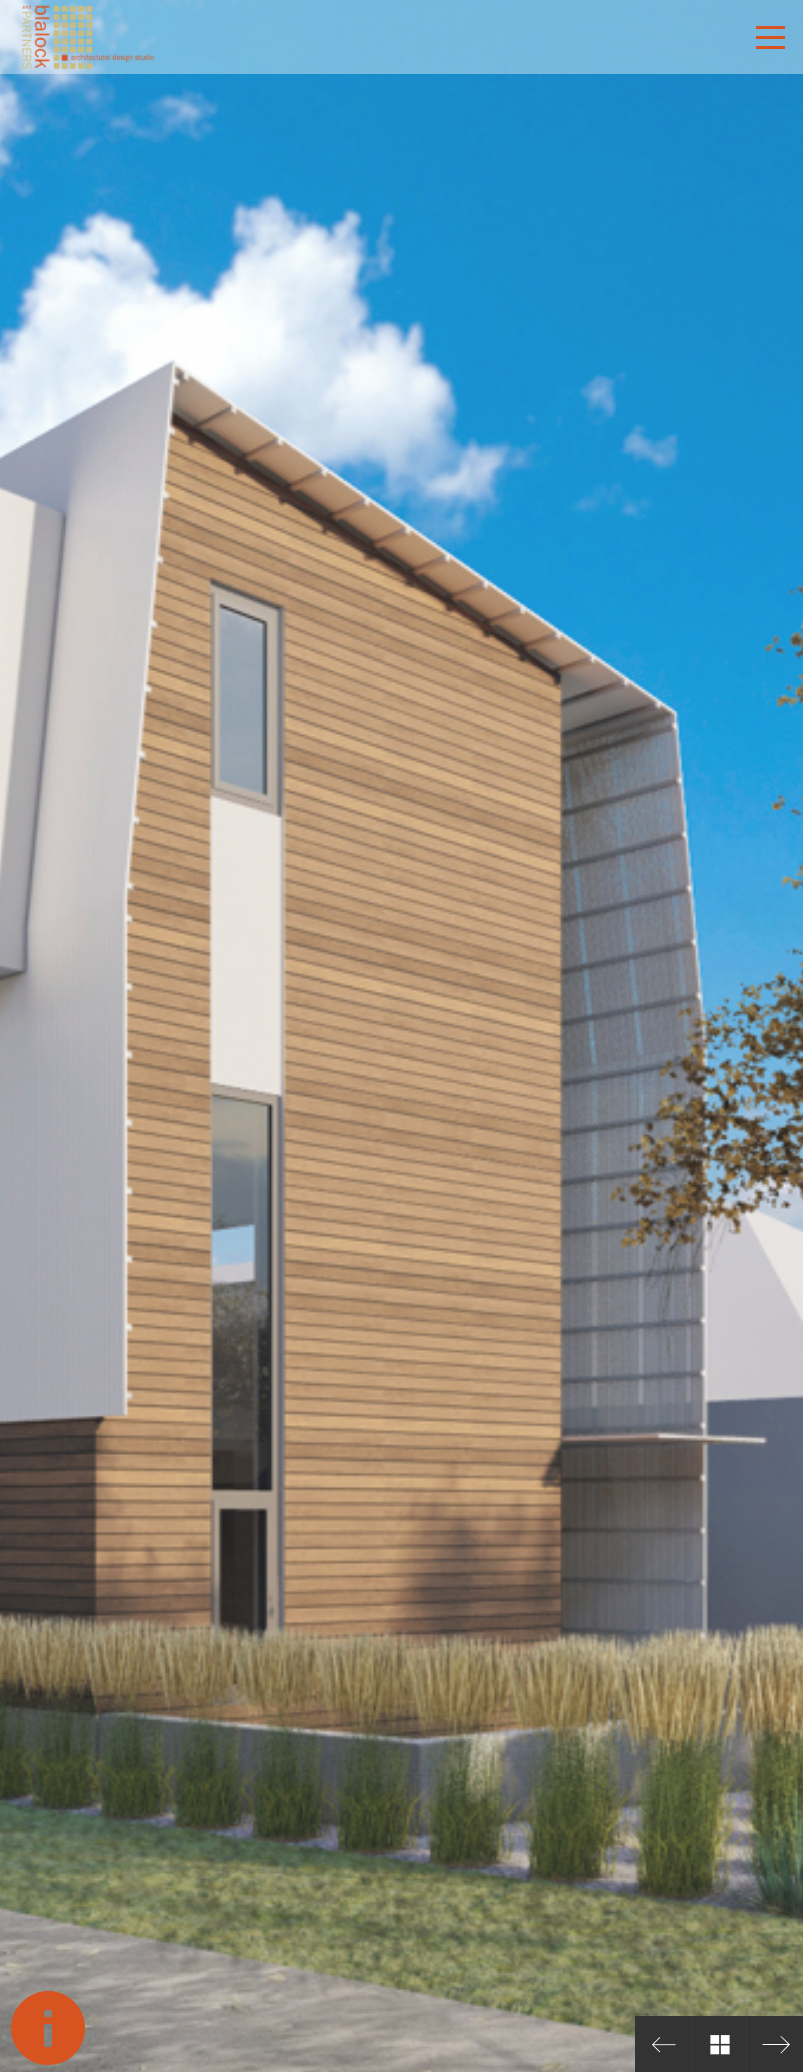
#include <cairo/cairo.h>
#include <math.h>
#include <stddef.h>


static void draw_image(cairo_t *cr, const char *path, double x, double y, double w, double h) {
  cairo_surface_t *image = cairo_image_surface_create_from_png(path);
  cairo_save(cr);
  cairo_set_source_surface(cr, image, x, y);
  cairo_rectangle(cr, x, y, w, h);
  cairo_fill(cr);
  cairo_restore(cr);
  cairo_surface_destroy(image);
}

static void draw(cairo_t *cr) {
  cairo_set_source_rgb(cr, 1, 1, 1);
  cairo_paint(cr);
  draw_image(cr, "images/1.png", 0, 0, 803, 2072);
  cairo_set_source_rgba(cr, 216 / 255.0, 83 / 255.0, 31 / 255.0, 0.99);
  cairo_new_path(cr);
  cairo_move_to(cr, 48, 1991);
  cairo_curve_to(cr, 28, 1991, 11, 2008, 11, 2028);
  cairo_curve_to(cr, 11, 2049, 28, 2065, 48, 2065);
  cairo_curve_to(cr, 69, 2065, 85, 2049, 85, 2028);
  cairo_curve_to(cr, 85, 2008, 69, 1991, 48, 1991);
  cairo_close_path(cr);
  cairo_move_to(cr, 52, 2047);
  cairo_line_to(cr, 44, 2047);
  cairo_line_to(cr, 44, 2024);
  cairo_line_to(cr, 52, 2024);
  cairo_close_path(cr);
  cairo_move_to(cr, 52, 2017);
  cairo_line_to(cr, 44, 2017);
  cairo_line_to(cr, 44, 2010);
  cairo_line_to(cr, 52, 2010);
  cairo_close_path(cr);
  cairo_fill(cr);
  cairo_set_source_rgba(cr, 1, 1, 1, 0.4);
  cairo_rectangle(cr, 0, 0, 803, 74);
  cairo_fill(cr);
  draw_image(cr, "images/2.png", 21, 4, 134, 66);
  cairo_set_source_rgb(cr, 216 / 255.0, 83 / 255.0, 31 / 255.0);
  cairo_rectangle(cr, 756, 26, 29, 3);
  cairo_fill(cr);
  cairo_rectangle(cr, 756, 36, 29, 3);
  cairo_fill(cr);
  cairo_rectangle(cr, 756, 46, 29, 3);
  cairo_fill(cr);
  cairo_set_source_rgb(cr, 51 / 255.0, 51 / 255.0, 51 / 255.0);
  cairo_rectangle(cr, 635, 2016, 56, 56);
  cairo_fill(cr);
  draw_image(cr, "images/3.png", 652, 2037, 24, 16);
  cairo_rectangle(cr, 692, 2016, 111, 56);
  cairo_fill(cr);
  cairo_set_source_rgb(cr, 57 / 255.0, 57 / 255.0, 57 / 255.0);
  cairo_rectangle(cr, 746, 2016, 1, 56);
  cairo_fill(cr);
  cairo_rectangle(cr, 691, 2016, 1, 56);
  cairo_fill(cr);
  draw_image(cr, "images/4.png", 710, 2035, 20, 20);
  cairo_set_source_rgb(cr, 1, 1, 1);
  cairo_new_path(cr);
  cairo_move_to(cr, 781, 2036);
  cairo_line_to(cr, 780.5, 2036.5);
  cairo_line_to(cr, 788, 2044);
  cairo_line_to(cr, 762.5, 2044);
  cairo_line_to(cr, 762.5, 2045);
  cairo_line_to(cr, 788, 2045);
  cairo_line_to(cr, 780.5, 2053);
  cairo_line_to(cr, 781, 2053.5);
  cairo_line_to(cr, 790, 2044.5);
  cairo_close_path(cr);
  cairo_fill(cr);
}

int main(void) {
  cairo_surface_t *surface = cairo_image_surface_create(CAIRO_FORMAT_RGB24, 803, 2072);
  cairo_t *cr = cairo_create(surface);
  cairo_font_options_t *options = cairo_font_options_create();
  cairo_font_options_set_hint_metrics(options, CAIRO_HINT_METRICS_OFF);
  cairo_font_options_set_hint_style(options, CAIRO_HINT_STYLE_NONE);
  cairo_set_font_options(cr, options);
  cairo_set_miter_limit(cr, 4);
  draw(cr);
  cairo_surface_write_to_png(surface, "out.png");
  cairo_font_options_destroy(options);
  cairo_destroy(cr);
  cairo_surface_destroy(surface);
  return 0;
}
